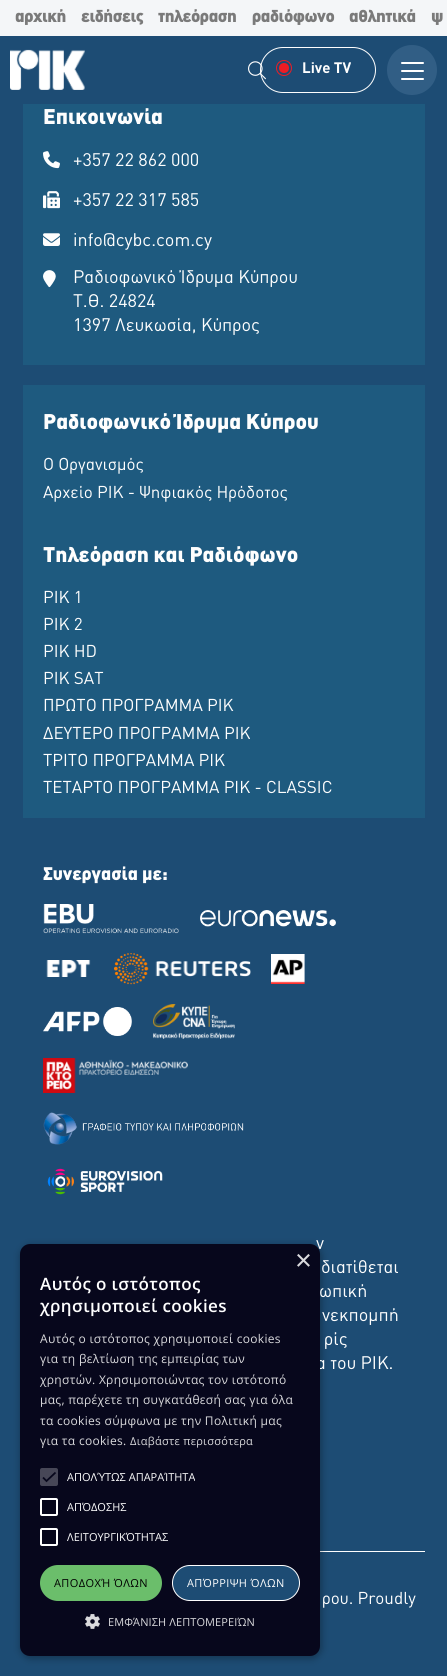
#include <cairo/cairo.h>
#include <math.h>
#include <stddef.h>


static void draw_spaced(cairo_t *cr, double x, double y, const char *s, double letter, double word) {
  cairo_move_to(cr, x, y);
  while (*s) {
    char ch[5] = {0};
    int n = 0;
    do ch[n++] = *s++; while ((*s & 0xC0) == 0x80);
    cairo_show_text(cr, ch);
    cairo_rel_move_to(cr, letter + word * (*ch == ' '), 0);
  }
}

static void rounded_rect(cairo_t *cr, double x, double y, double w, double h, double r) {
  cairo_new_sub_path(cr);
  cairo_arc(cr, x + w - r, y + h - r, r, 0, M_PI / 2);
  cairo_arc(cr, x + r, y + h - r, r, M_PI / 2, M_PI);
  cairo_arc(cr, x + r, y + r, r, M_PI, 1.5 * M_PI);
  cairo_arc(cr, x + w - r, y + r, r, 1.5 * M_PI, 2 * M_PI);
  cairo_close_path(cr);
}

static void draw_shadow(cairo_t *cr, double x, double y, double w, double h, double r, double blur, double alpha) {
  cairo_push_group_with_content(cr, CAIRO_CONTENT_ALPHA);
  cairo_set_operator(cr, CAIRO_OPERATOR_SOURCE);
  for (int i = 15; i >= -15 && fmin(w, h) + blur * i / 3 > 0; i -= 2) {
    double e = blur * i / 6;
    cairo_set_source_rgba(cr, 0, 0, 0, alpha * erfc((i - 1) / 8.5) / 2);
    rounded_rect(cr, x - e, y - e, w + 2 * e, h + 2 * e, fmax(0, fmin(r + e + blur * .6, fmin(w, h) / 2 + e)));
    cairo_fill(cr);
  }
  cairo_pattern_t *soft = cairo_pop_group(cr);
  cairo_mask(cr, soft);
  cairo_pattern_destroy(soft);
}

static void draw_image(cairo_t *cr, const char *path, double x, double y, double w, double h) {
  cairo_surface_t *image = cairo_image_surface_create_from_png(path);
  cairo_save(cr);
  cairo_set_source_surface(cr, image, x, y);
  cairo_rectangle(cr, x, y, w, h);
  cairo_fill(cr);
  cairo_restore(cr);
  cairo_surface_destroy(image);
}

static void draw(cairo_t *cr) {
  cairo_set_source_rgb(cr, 29 / 255.0, 76 / 255.0, 116 / 255.0);
  cairo_paint(cr);
  cairo_set_source_rgb(cr, 244 / 255.0, 246 / 255.0, 248 / 255.0);
  cairo_rectangle(cr, 0, 0, 447, 36);
  cairo_fill(cr);
  draw_image(cr, "images/1.png", 10, 49, 75, 41);
  rounded_rect(cr, 260.5, 47.5, 115, 45, 22.5);
  cairo_set_source_rgb(cr, 254 / 255.0, 254 / 255.0, 254 / 255.0);
  cairo_set_line_width(cr, 1);
  cairo_stroke(cr);
  draw_image(cr, "images/2.png", 248, 61, 18, 19);
  cairo_set_source_rgb(cr, 237 / 255.0, 28 / 255.0, 36 / 255.0);
  cairo_arc(cr, 284, 68, 5, 0, 2 * M_PI);
  cairo_fill(cr);
  cairo_arc(cr, 284, 68, 7.5, 0, 2 * M_PI);
  cairo_stroke(cr);
  cairo_set_source_rgb(cr, 49 / 255.0, 94 / 255.0, 133 / 255.0);
  cairo_arc(cr, 412, 70, 25, 0, 2 * M_PI);
  cairo_fill(cr);
  cairo_set_source_rgb(cr, 1, 1, 1);
  rounded_rect(cr, 401, 62, 23, 2, 1);
  cairo_fill(cr);
  rounded_rect(cr, 401, 70, 23, 2, 1);
  cairo_fill(cr);
  rounded_rect(cr, 401, 78, 23, 2, 1);
  cairo_fill(cr);
  cairo_set_source_rgb(cr, 254 / 255.0, 254 / 255.0, 254 / 255.0);
  cairo_rectangle(cr, 320, 1551, 105, 1);
  cairo_fill(cr);
  cairo_set_source_rgb(cr, 30 / 255.0, 90 / 255.0, 127 / 255.0);
  cairo_rectangle(cr, 23, 104, 402, 261);
  cairo_fill(cr);
  draw_image(cr, "images/3.png", 43, 151, 17, 18);
  draw_image(cr, "images/4.png", 43, 191, 17, 18);
  draw_image(cr, "images/5.png", 43, 233, 17, 13);
  draw_image(cr, "images/6.png", 43, 270, 13, 18);
  cairo_rectangle(cr, 23, 385, 402, 433);
  cairo_fill(cr);
  draw_image(cr, "images/7.png", 43, 904, 136, 30);
  draw_image(cr, "images/8.png", 200, 910, 136, 17);
  draw_image(cr, "images/9.png", 46, 960, 45, 17);
  draw_image(cr, "images/10.png", 114, 953, 137, 32);
  draw_image(cr, "images/11.png", 271, 954, 34, 30);
  draw_image(cr, "images/12.png", 43, 1007, 89, 29);
  draw_image(cr, "images/13.png", 153, 1004, 82, 35);
  draw_image(cr, "images/14.png", 43, 1058, 145, 35);
  draw_image(cr, "images/15.png", 43, 1112, 201, 33);
  draw_image(cr, "images/16.png", 47, 1168, 116, 27);
  cairo_set_source_rgb(cr, 0, 0, 0);
  draw_shadow(cr, 21, 1246, 300, 412, 10, 4, 0.35);
  cairo_select_font_face(cr, "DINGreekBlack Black", CAIRO_FONT_SLANT_NORMAL, CAIRO_FONT_WEIGHT_NORMAL);
  cairo_set_font_size(cr, 17);
  cairo_set_source_rgb(cr, 122 / 255.0, 122 / 255.0, 122 / 255.0);
  draw_spaced(cr, 15, 22, "αρχική", -0.5, 0);
  draw_spaced(cr, 81, 22, "ειδήσεις", -0.5, 0);
  draw_spaced(cr, 158, 22, "τηλεόραση", -0.5, 0);
  draw_spaced(cr, 252, 22, "ραδιόφωνο", -0.5, 0);
  draw_spaced(cr, 349, 22, "αθλητικά", -0.5, 0);
  draw_spaced(cr, 431, 22, "ψ", -0.5, 0);
  cairo_select_font_face(cr, "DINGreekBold", CAIRO_FONT_SLANT_NORMAL, CAIRO_FONT_WEIGHT_BOLD);
  cairo_set_font_size(cr, 15);
  cairo_set_source_rgb(cr, 254 / 255.0, 254 / 255.0, 254 / 255.0);
  cairo_move_to(cr, 302, 73);
  cairo_show_text(cr, "Live TV");
  cairo_select_font_face(cr, "DINGreekBlack Black", CAIRO_FONT_SLANT_NORMAL, CAIRO_FONT_WEIGHT_NORMAL);
  cairo_set_font_size(cr, 21);
  cairo_move_to(cr, 43, 124);
  cairo_show_text(cr, "Επικοινωνία");
  cairo_select_font_face(cr, "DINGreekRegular", CAIRO_FONT_SLANT_NORMAL, CAIRO_FONT_WEIGHT_NORMAL);
  cairo_set_font_size(cr, 18);
  cairo_move_to(cr, 73, 166);
  cairo_show_text(cr, "+357 22 862 000");
  cairo_move_to(cr, 73, 206);
  cairo_show_text(cr, "+357 22 317 585");
  cairo_move_to(cr, 73, 246);
  cairo_show_text(cr, "info@cybc.com.cy");
  cairo_move_to(cr, 73, 283);
  cairo_show_text(cr, "Ραδιοφωνικό Ίδρυμα Κύπρου");
  cairo_move_to(cr, 73, 307);
  cairo_show_text(cr, "Τ.Θ. 24824");
  cairo_move_to(cr, 73, 331);
  cairo_show_text(cr, "1397 Λευκωσία, Κύπρος");
  cairo_select_font_face(cr, "DINGreekBlack Black", CAIRO_FONT_SLANT_NORMAL, CAIRO_FONT_WEIGHT_NORMAL);
  cairo_set_font_size(cr, 21);
  cairo_move_to(cr, 43, 429);
  cairo_show_text(cr, "Ραδιοφωνικό Ίδρυμα Κύπρου");
  cairo_select_font_face(cr, "DINGreekRegular", CAIRO_FONT_SLANT_NORMAL, CAIRO_FONT_WEIGHT_NORMAL);
  cairo_set_font_size(cr, 17);
  cairo_move_to(cr, 43, 470);
  cairo_show_text(cr, "Ο Οργανισμός");
  cairo_move_to(cr, 43, 498);
  cairo_show_text(cr, "Αρχείο ΡΙΚ - Ψηφιακός Ηρόδοτος");
  cairo_select_font_face(cr, "DINGreekBlack Black", CAIRO_FONT_SLANT_NORMAL, CAIRO_FONT_WEIGHT_NORMAL);
  cairo_set_font_size(cr, 21);
  cairo_move_to(cr, 43, 562);
  cairo_show_text(cr, "Τηλεόραση και Ραδιόφωνο");
  cairo_select_font_face(cr, "DINGreekRegular", CAIRO_FONT_SLANT_NORMAL, CAIRO_FONT_WEIGHT_NORMAL);
  cairo_set_font_size(cr, 17);
  cairo_move_to(cr, 43, 603);
  cairo_show_text(cr, "ΡΙΚ 1");
  cairo_move_to(cr, 43, 630);
  cairo_show_text(cr, "ΡΙΚ 2");
  cairo_move_to(cr, 43, 657);
  cairo_show_text(cr, "ΡΙΚ HD");
  cairo_move_to(cr, 43, 684);
  cairo_show_text(cr, "ΡΙΚ SAT");
  cairo_move_to(cr, 43, 711);
  cairo_show_text(cr, "ΠΡΩΤΟ ΠΡΟΓΡΑΜΜΑ ΡΙΚ");
  cairo_move_to(cr, 43, 739);
  cairo_show_text(cr, "ΔΕΥΤΕΡΟ ΠΡΟΓΡΑΜΜΑ ΡΙΚ");
  cairo_move_to(cr, 43, 766);
  cairo_show_text(cr, "ΤΡΙΤΟ ΠΡΟΓΡΑΜΜΑ ΡΙΚ");
  cairo_move_to(cr, 43, 793);
  cairo_show_text(cr, "ΤΕΤΑΡΤΟ ΠΡΟΓΡΑΜΜΑ ΡΙΚ - CLASSIC");
  cairo_select_font_face(cr, "DINGreekBlack Black", CAIRO_FONT_SLANT_NORMAL, CAIRO_FONT_WEIGHT_NORMAL);
  cairo_set_font_size(cr, 18);
  cairo_move_to(cr, 43, 880);
  cairo_show_text(cr, "Συνεργασία με:");
  cairo_select_font_face(cr, "DINGreekRegular", CAIRO_FONT_SLANT_NORMAL, CAIRO_FONT_WEIGHT_NORMAL);
  cairo_move_to(cr, 316, 1249);
  cairo_show_text(cr, "ν");
  cairo_move_to(cr, 321, 1273);
  cairo_show_text(cr, "διατίθεται");
  cairo_move_to(cr, 319, 1297);
  cairo_show_text(cr, "ωπική");
  cairo_move_to(cr, 322, 1321);
  cairo_show_text(cr, "νεκπομπή");
  cairo_move_to(cr, 324, 1345);
  cairo_show_text(cr, "ρίς");
  cairo_move_to(cr, 316, 1369);
  cairo_show_text(cr, "α του ΡΙΚ.");
  cairo_set_font_size(cr, 17);
  cairo_move_to(cr, 322, 1604);
  cairo_show_text(cr, "ρου. Proudly");
  cairo_set_source_rgb(cr, 7 / 255.0, 7 / 255.0, 28 / 255.0);
  rounded_rect(cr, 20, 1244, 300, 412, 10);
  cairo_fill(cr);
  cairo_select_font_face(cr, "Liberation Sans", CAIRO_FONT_SLANT_NORMAL, CAIRO_FONT_WEIGHT_NORMAL);
  cairo_set_font_size(cr, 29);
  cairo_set_source_rgb(cr, 218 / 255.0, 218 / 255.0, 221 / 255.0);
  cairo_move_to(cr, 295, 1270);
  cairo_show_text(cr, "×");
  cairo_select_font_face(cr, "Open Sans SemiBold", CAIRO_FONT_SLANT_NORMAL, CAIRO_FONT_WEIGHT_NORMAL);
  cairo_set_font_size(cr, 17);
  cairo_set_source_rgb(cr, 254 / 255.0, 254 / 255.0, 254 / 255.0);
  draw_spaced(cr, 40, 1290, "Αυτός ο ιστότοπος", 0.4, 0);
  draw_spaced(cr, 40, 1312, "χρησιμοποιεί cookies", 0.4, 0);
  cairo_select_font_face(cr, "Open Sans", CAIRO_FONT_SLANT_NORMAL, CAIRO_FONT_WEIGHT_NORMAL);
  cairo_set_font_size(cr, 12);
  cairo_set_source_rgb(cr, 218 / 255.0, 218 / 255.0, 221 / 255.0);
  draw_spaced(cr, 40, 1343, "Αυτός ο ιστότοπος χρησιμοποιεί cookies", 0.3, 0);
  draw_spaced(cr, 40, 1363, "για τη βελτίωση της εμπειρίας των", 0.3, 0);
  draw_spaced(cr, 40, 1384, "χρηστών. Χρησιμοποιώντας τον ιστότοπό", 0.3, 0);
  draw_spaced(cr, 40, 1404, "μας, παρέχετε τη συγκατάθεσή σας για όλα", 0.3, 0);
  draw_spaced(cr, 40, 1425, "τα cookies σύμφωνα με την Πολιτική μας", 0.3, 0);
  draw_spaced(cr, 40, 1445, "για τα cookies.", 0.3, 0);
  cairo_set_font_size(cr, 11);
  draw_spaced(cr, 130, 1445, "Διαβάστε περισσότερα", 0.3, 0);
  cairo_set_source_rgb(cr, 71 / 255.0, 71 / 255.0, 87 / 255.0);
  rounded_rect(cr, 40, 1468, 18, 18, 2);
  cairo_fill(cr);
  cairo_new_path(cr);
  cairo_move_to(cr, 43, 1477.5);
  cairo_line_to(cr, 46.5, 1481);
  cairo_line_to(cr, 55.5, 1472.5);
  cairo_set_source_rgb(cr, 7 / 255.0, 7 / 255.0, 28 / 255.0);
  cairo_set_line_width(cr, 1.8);
  cairo_stroke(cr);
  cairo_set_source_rgb(cr, 254 / 255.0, 254 / 255.0, 254 / 255.0);
  cairo_move_to(cr, 67, 1481);
  cairo_show_text(cr, "ΑΠΟΛΎΤΩΣ ΑΠΑΡΑΊΤΗΤΑ");
  rounded_rect(cr, 41, 1499, 16, 16, 1);
  cairo_set_source_rgb(cr, 1, 1, 1);
  cairo_set_line_width(cr, 2);
  cairo_stroke(cr);
  cairo_set_source_rgb(cr, 254 / 255.0, 254 / 255.0, 254 / 255.0);
  cairo_move_to(cr, 67, 1511);
  cairo_show_text(cr, "ΑΠΌΔΟΣΗΣ");
  rounded_rect(cr, 41, 1529, 16, 16, 1);
  cairo_set_source_rgb(cr, 1, 1, 1);
  cairo_stroke(cr);
  cairo_set_source_rgb(cr, 254 / 255.0, 254 / 255.0, 254 / 255.0);
  cairo_move_to(cr, 67, 1541);
  cairo_show_text(cr, "ΛΕΙΤΟΥΡΓΙΚΌΤΗΤΑΣ");
  cairo_set_source_rgb(cr, 107 / 255.0, 190 / 255.0, 107 / 255.0);
  rounded_rect(cr, 40, 1565, 122, 36, 18);
  cairo_fill(cr);
  cairo_set_source_rgb(cr, 0, 0, 0);
  draw_spaced(cr, 54, 1587, "ΑΠΟΔΟΧΉ ΌΛΩΝ", 0.4, 0);
  cairo_set_source_rgb(cr, 29 / 255.0, 76 / 255.0, 116 / 255.0);
  rounded_rect(cr, 172.5, 1565.5, 127, 35, 17.5);
  cairo_fill_preserve(cr);
  cairo_set_source_rgb(cr, 1, 1, 1);
  cairo_set_line_width(cr, 1);
  cairo_stroke(cr);
  cairo_set_source_rgb(cr, 254 / 255.0, 254 / 255.0, 254 / 255.0);
  draw_spaced(cr, 187, 1587, "ΑΠΌΡΡΙΨΗ ΌΛΩΝ", 0.4, 0);
  draw_image(cr, "images/17.png", 85, 1614, 15, 15);
  cairo_set_source_rgb(cr, 218 / 255.0, 218 / 255.0, 221 / 255.0);
  draw_spaced(cr, 108, 1626, "ΕΜΦΆΝΙΣΗ ΛΕΠΤΟΜΕΡΕΙΏΝ", 0.1, 0);
}

int main(void) {
  cairo_surface_t *surface = cairo_image_surface_create(CAIRO_FORMAT_RGB24, 447, 1676);
  cairo_t *cr = cairo_create(surface);
  cairo_font_options_t *options = cairo_font_options_create();
  cairo_font_options_set_hint_metrics(options, CAIRO_HINT_METRICS_OFF);
  cairo_font_options_set_hint_style(options, CAIRO_HINT_STYLE_NONE);
  cairo_set_font_options(cr, options);
  cairo_set_miter_limit(cr, 4);
  draw(cr);
  cairo_surface_write_to_png(surface, "out.png");
  cairo_font_options_destroy(options);
  cairo_destroy(cr);
  cairo_surface_destroy(surface);
  return 0;
}
